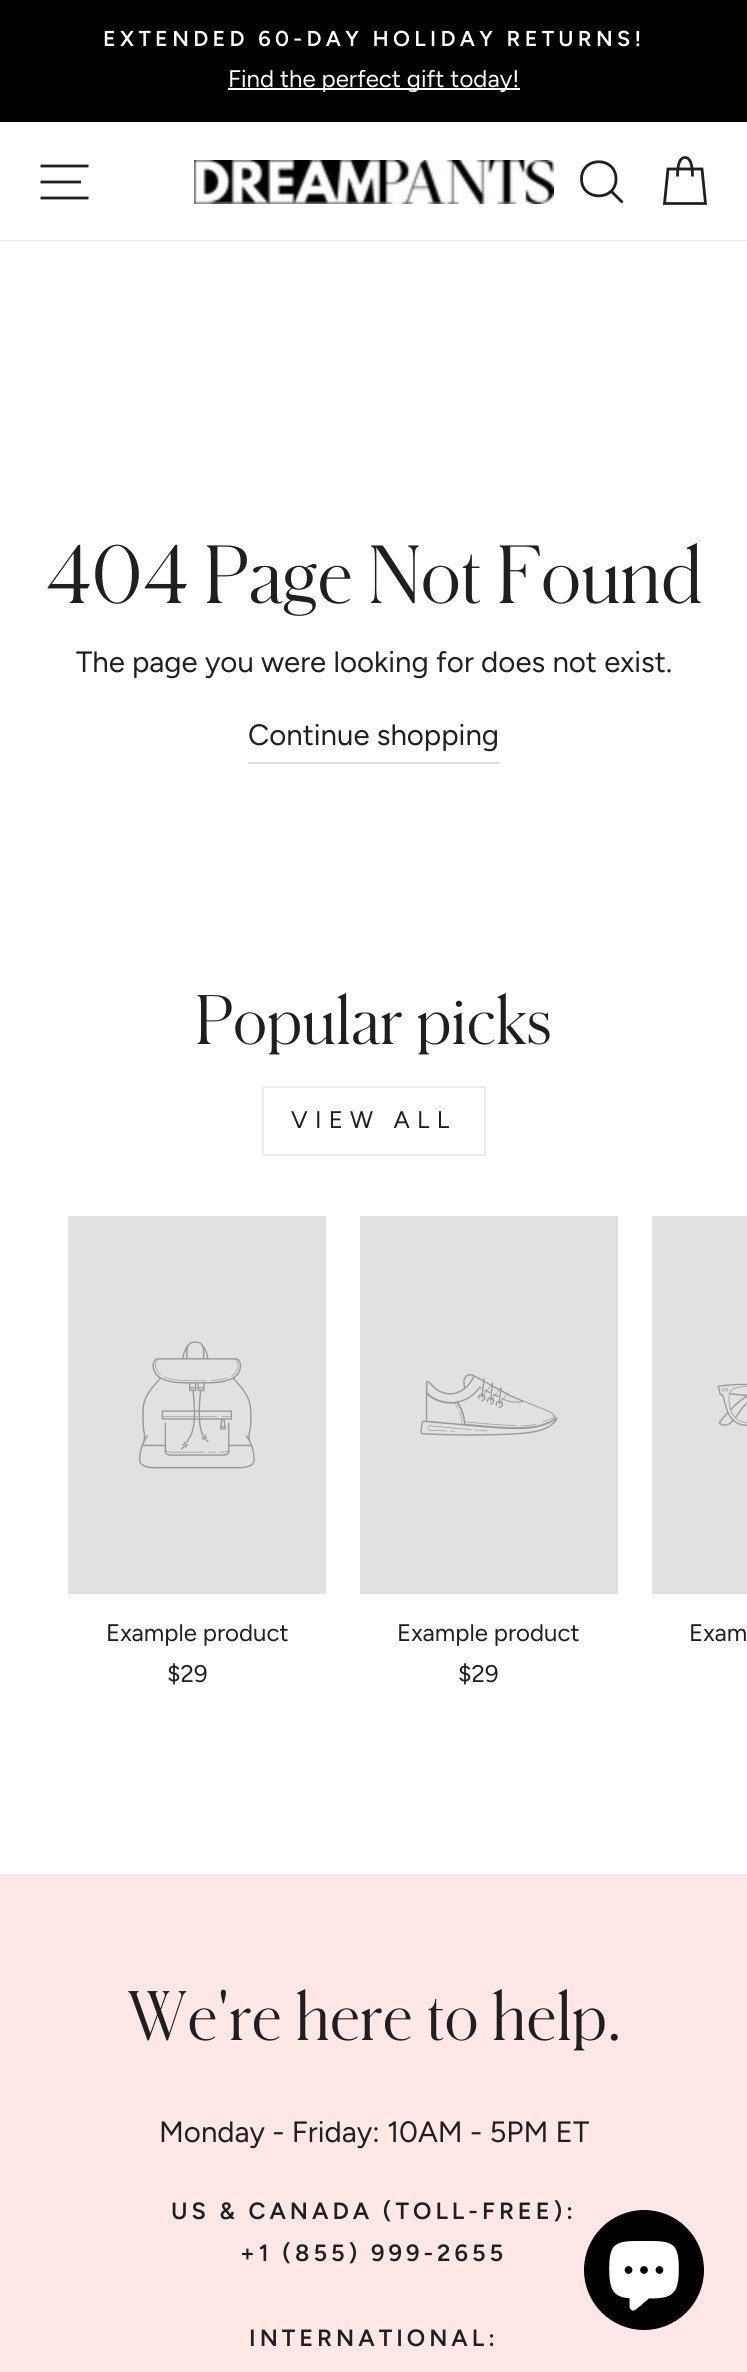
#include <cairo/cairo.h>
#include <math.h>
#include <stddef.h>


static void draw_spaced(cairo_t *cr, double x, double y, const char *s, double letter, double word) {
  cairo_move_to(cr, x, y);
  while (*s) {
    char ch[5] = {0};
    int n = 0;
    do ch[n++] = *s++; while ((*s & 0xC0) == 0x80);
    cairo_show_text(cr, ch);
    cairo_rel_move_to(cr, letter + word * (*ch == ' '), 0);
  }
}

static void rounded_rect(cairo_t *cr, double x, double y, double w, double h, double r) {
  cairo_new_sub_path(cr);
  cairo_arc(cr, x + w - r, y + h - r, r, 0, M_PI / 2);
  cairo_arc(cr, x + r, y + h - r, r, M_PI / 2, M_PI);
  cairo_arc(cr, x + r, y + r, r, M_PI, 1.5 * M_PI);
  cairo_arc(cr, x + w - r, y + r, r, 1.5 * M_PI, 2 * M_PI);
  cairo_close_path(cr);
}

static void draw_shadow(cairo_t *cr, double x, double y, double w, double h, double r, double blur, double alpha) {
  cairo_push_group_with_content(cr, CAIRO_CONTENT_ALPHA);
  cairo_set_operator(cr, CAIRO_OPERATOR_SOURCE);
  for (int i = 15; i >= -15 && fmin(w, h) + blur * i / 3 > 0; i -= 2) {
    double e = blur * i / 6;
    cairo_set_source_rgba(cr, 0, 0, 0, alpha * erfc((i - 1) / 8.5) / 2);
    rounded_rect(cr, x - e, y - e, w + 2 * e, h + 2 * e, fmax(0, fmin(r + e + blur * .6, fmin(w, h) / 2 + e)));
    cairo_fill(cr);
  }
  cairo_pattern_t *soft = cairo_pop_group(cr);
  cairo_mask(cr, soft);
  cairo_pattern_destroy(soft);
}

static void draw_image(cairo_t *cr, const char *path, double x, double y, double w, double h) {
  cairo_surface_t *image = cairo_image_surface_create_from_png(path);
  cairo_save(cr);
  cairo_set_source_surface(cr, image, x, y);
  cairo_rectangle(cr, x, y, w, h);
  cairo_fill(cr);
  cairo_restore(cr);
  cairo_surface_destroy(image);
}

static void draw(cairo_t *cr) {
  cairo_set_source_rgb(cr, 1, 1, 1);
  cairo_paint(cr);
  cairo_set_source_rgb(cr, 0, 0, 0);
  cairo_rectangle(cr, 0, 0, 747, 122);
  cairo_fill(cr);
  cairo_set_source_rgb(cr, 1, 1, 1);
  cairo_rectangle(cr, 228, 88, 292, 2);
  cairo_fill(cr);
  cairo_save(cr);
  cairo_set_fill_rule(cr, CAIRO_FILL_RULE_EVEN_ODD);
  cairo_new_path(cr);
  cairo_move_to(cr, 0, 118);
  cairo_line_to(cr, 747, 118);
  cairo_line_to(cr, 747, 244);
  cairo_line_to(cr, 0, 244);
  cairo_close_path(cr);
  cairo_move_to(cr, 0, 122);
  cairo_line_to(cr, 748, 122);
  cairo_line_to(cr, 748, 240);
  cairo_line_to(cr, 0, 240);
  cairo_close_path(cr);
  cairo_clip(cr);
  cairo_set_source_rgb(cr, 0, 0, 0);
  draw_shadow(cr, 0, 122, 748, 118, 0, 1, 0.2);
  cairo_restore(cr);
  cairo_new_path(cr);
  cairo_move_to(cr, 40.5, 166);
  cairo_line_to(cr, 88.5, 166);
  cairo_move_to(cr, 40.5, 182);
  cairo_line_to(cr, 81, 182);
  cairo_move_to(cr, 40.5, 198);
  cairo_line_to(cr, 88.5, 198);
  cairo_set_source_rgb(cr, 31 / 255.0, 31 / 255.0, 31 / 255.0);
  cairo_set_line_width(cr, 2.8);
  cairo_stroke(cr);
  draw_image(cr, "images/1.png", 194, 160, 360, 44);
  cairo_new_path(cr);
  cairo_move_to(cr, 616, 179);
  cairo_curve_to(cr, 616, 201.5, 581.5, 201.5, 581.5, 179);
  cairo_curve_to(cr, 581.5, 156, 616, 156, 616, 179);
  cairo_close_path(cr);
  cairo_move_to(cr, 622.5, 202.5);
  cairo_line_to(cr, 611.5, 191.5);
  cairo_stroke(cr);
  cairo_new_path(cr);
  cairo_move_to(cr, 677.5, 176.5);
  cairo_curve_to(cr, 677.5, 161.5, 681, 157.5, 685, 157.5);
  cairo_curve_to(cr, 689, 157.5, 692.5, 161.5, 692.5, 176.5);
  cairo_move_to(cr, 668, 169);
  cairo_line_to(cr, 702, 169);
  cairo_line_to(cr, 705.5, 203.5);
  cairo_line_to(cr, 664.5, 203.5);
  cairo_close_path(cr);
  cairo_stroke(cr);
  cairo_set_source_rgb(cr, 221 / 255.0, 221 / 255.0, 221 / 255.0);
  cairo_rectangle(cr, 248, 762, 252, 2);
  cairo_fill(cr);
  cairo_rectangle(cr, 263, 1087, 222, 68);
  cairo_set_source_rgb(cr, 237 / 255.0, 237 / 255.0, 237 / 255.0);
  cairo_set_line_width(cr, 2);
  cairo_stroke(cr);
  cairo_set_source_rgb(cr, 225 / 255.0, 225 / 255.0, 225 / 255.0);
  cairo_rectangle(cr, 68, 1216, 258, 378);
  cairo_fill(cr);
  draw_image(cr, "images/2.png", 138, 1341, 117, 128);
  cairo_rectangle(cr, 360, 1216, 258, 378);
  cairo_fill(cr);
  draw_image(cr, "images/3.png", 420, 1374, 138, 62);
  cairo_rectangle(cr, 652, 1216, 95, 378);
  cairo_fill(cr);
  draw_image(cr, "images/4.png", 717, 1383, 30, 43);
  cairo_set_source_rgb(cr, 1, 231 / 255.0, 231 / 255.0);
  cairo_rectangle(cr, 0, 1874, 747, 498);
  cairo_fill(cr);
  cairo_set_source_rgb(cr, 0, 0, 0);
  cairo_arc(cr, 644, 2270, 60, 0, 2 * M_PI);
  cairo_fill(cr);
  draw_image(cr, "images/5.png", 609, 2241, 70, 70);
  cairo_select_font_face(cr, "Figtree SemiBold", CAIRO_FONT_SLANT_NORMAL, CAIRO_FONT_WEIGHT_NORMAL);
  cairo_set_font_size(cr, 21.6);
  cairo_set_source_rgb(cr, 1, 1, 1);
  draw_spaced(cr, 103, 46, "EXTENDED 60-DAY HOLIDAY RETURNS!", 4.3, 0);
  cairo_select_font_face(cr, "Figtree", CAIRO_FONT_SLANT_NORMAL, CAIRO_FONT_WEIGHT_NORMAL);
  cairo_set_font_size(cr, 24);
  cairo_move_to(cr, 228, 87);
  cairo_show_text(cr, "Find the perfect gift today!");
  cairo_select_font_face(cr, "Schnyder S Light", CAIRO_FONT_SLANT_NORMAL, CAIRO_FONT_WEIGHT_NORMAL);
  cairo_set_font_size(cr, 76.75);
  cairo_set_source_rgb(cr, 31 / 255.0, 31 / 255.0, 31 / 255.0);
  cairo_move_to(cr, 45, 603);
  cairo_show_text(cr, "404 Page Not Found");
  cairo_select_font_face(cr, "Figtree", CAIRO_FONT_SLANT_NORMAL, CAIRO_FONT_WEIGHT_NORMAL);
  cairo_set_font_size(cr, 29.4);
  cairo_move_to(cr, 76, 672);
  cairo_show_text(cr, "The page you were looking for does not exist.");
  cairo_move_to(cr, 248, 745);
  cairo_show_text(cr, "Continue shopping");
  cairo_select_font_face(cr, "Schnyder S Light", CAIRO_FONT_SLANT_NORMAL, CAIRO_FONT_WEIGHT_NORMAL);
  cairo_set_font_size(cr, 65.25);
  cairo_move_to(cr, 196, 1044);
  cairo_show_text(cr, "Popular picks");
  cairo_select_font_face(cr, "Figtree", CAIRO_FONT_SLANT_NORMAL, CAIRO_FONT_WEIGHT_NORMAL);
  cairo_set_font_size(cr, 24);
  draw_spaced(cr, 291, 1128, "VIEW ALL", 7.25, 0);
  cairo_move_to(cr, 106, 1641);
  cairo_show_text(cr, "Example product");
  cairo_move_to(cr, 167, 1682);
  cairo_show_text(cr, "$29");
  cairo_move_to(cr, 397, 1641);
  cairo_show_text(cr, "Example product");
  cairo_move_to(cr, 458, 1682);
  cairo_show_text(cr, "$29");
  cairo_move_to(cr, 689, 1641);
  cairo_show_text(cr, "Exam");
  cairo_select_font_face(cr, "Schnyder S Light", CAIRO_FONT_SLANT_NORMAL, CAIRO_FONT_WEIGHT_NORMAL);
  cairo_set_font_size(cr, 65.25);
  cairo_move_to(cr, 127, 2040);
  cairo_show_text(cr, "We're here to help.");
  cairo_select_font_face(cr, "Figtree", CAIRO_FONT_SLANT_NORMAL, CAIRO_FONT_WEIGHT_NORMAL);
  cairo_set_font_size(cr, 29.4);
  cairo_move_to(cr, 159, 2142);
  cairo_show_text(cr, "Monday - Friday: 10AM - 5PM ET");
  cairo_select_font_face(cr, "Figtree SemiBold", CAIRO_FONT_SLANT_NORMAL, CAIRO_FONT_WEIGHT_NORMAL);
  cairo_set_font_size(cr, 23.5);
  draw_spaced(cr, 171, 2219, "US & CANADA (TOLL-FREE):", 4, 0);
  draw_spaced(cr, 240, 2261, "+1 (855) 999-2655", 4, 0);
  draw_spaced(cr, 249, 2346, "INTERNATIONAL:", 4, 0);
}

int main(void) {
  cairo_surface_t *surface = cairo_image_surface_create(CAIRO_FORMAT_RGB24, 747, 2372);
  cairo_t *cr = cairo_create(surface);
  cairo_font_options_t *options = cairo_font_options_create();
  cairo_font_options_set_hint_metrics(options, CAIRO_HINT_METRICS_OFF);
  cairo_font_options_set_hint_style(options, CAIRO_HINT_STYLE_NONE);
  cairo_set_font_options(cr, options);
  cairo_set_miter_limit(cr, 4);
  draw(cr);
  cairo_surface_write_to_png(surface, "out.png");
  cairo_font_options_destroy(options);
  cairo_destroy(cr);
  cairo_surface_destroy(surface);
  return 0;
}
